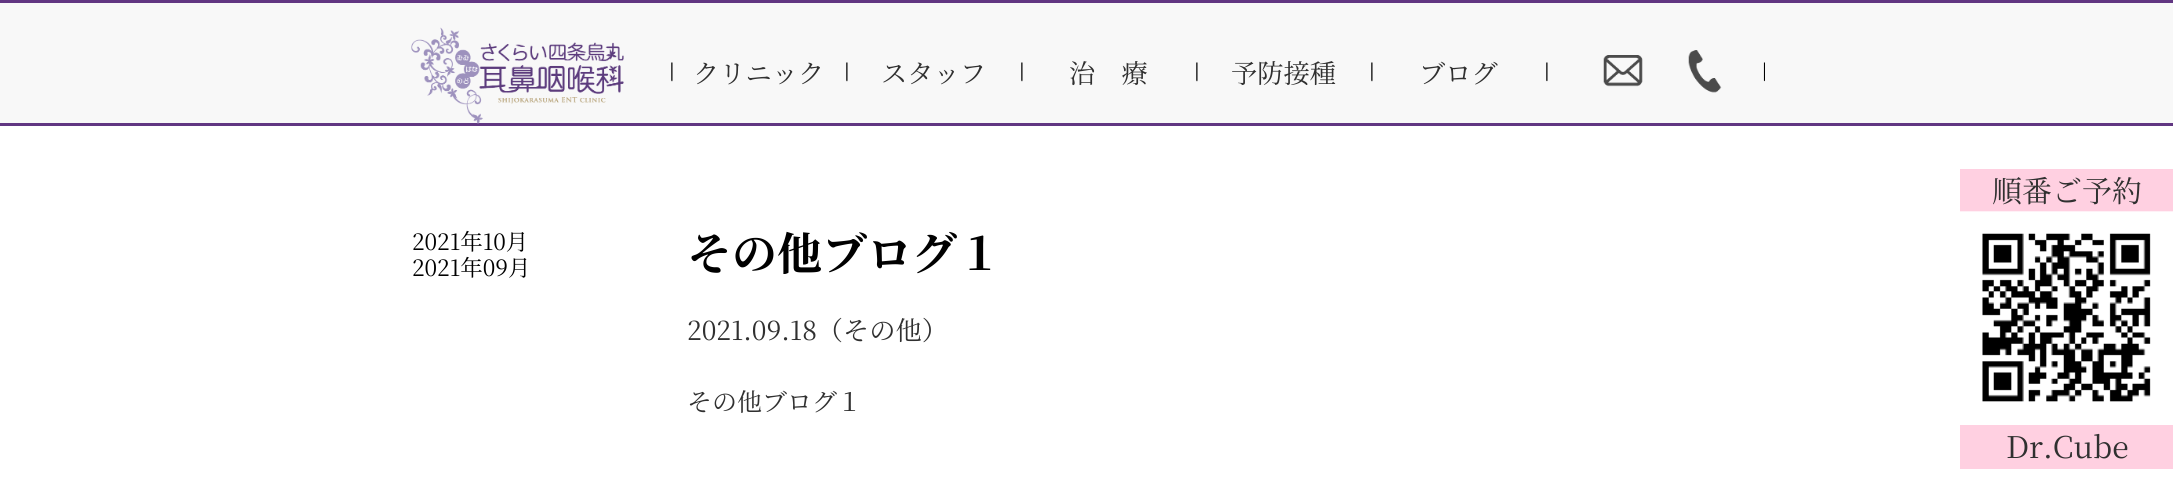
#include <cairo/cairo.h>
#include <math.h>
#include <stddef.h>


static void draw_image(cairo_t *cr, const char *path, double x, double y, double w, double h) {
  cairo_surface_t *image = cairo_image_surface_create_from_png(path);
  cairo_save(cr);
  cairo_set_source_surface(cr, image, x, y);
  cairo_rectangle(cr, x, y, w, h);
  cairo_fill(cr);
  cairo_restore(cr);
  cairo_surface_destroy(image);
}

static void draw(cairo_t *cr) {
  cairo_set_source_rgb(cr, 1, 1, 1);
  cairo_paint(cr);
  cairo_set_source_rgb(cr, 248 / 255.0, 248 / 255.0, 248 / 255.0);
  cairo_rectangle(cr, 0, 3, 2173, 120);
  cairo_fill(cr);
  cairo_set_source_rgb(cr, 97 / 255.0, 54 / 255.0, 130 / 255.0);
  cairo_rectangle(cr, 0, 0, 2173, 3);
  cairo_fill(cr);
  cairo_rectangle(cr, 0, 123, 2173, 3);
  cairo_fill(cr);
  draw_image(cr, "images/1.png", 411, 27, 213, 97);
  draw_image(cr, "images/2.png", 671, 62, 2, 20);
  draw_image(cr, "images/2.png", 846, 62, 2, 20);
  draw_image(cr, "images/2.png", 1021, 62, 2, 20);
  draw_image(cr, "images/2.png", 1196, 62, 2, 20);
  draw_image(cr, "images/2.png", 1371, 62, 2, 20);
  draw_image(cr, "images/3.png", 1546, 62, 2, 20);
  draw_image(cr, "images/4.png", 1603, 55, 40, 32);
  draw_image(cr, "images/5.png", 1763, 62, 2, 20);
  draw_image(cr, "images/6.png", 1688, 50, 34, 43);
  cairo_set_source_rgb(cr, 1, 208 / 255.0, 225 / 255.0);
  cairo_rectangle(cr, 1960, 169, 213, 300);
  cairo_fill(cr);
  draw_image(cr, "images/7.png", 1960, 211, 213, 214);
  cairo_select_font_face(cr, "Noto Serif JP", CAIRO_FONT_SLANT_NORMAL, CAIRO_FONT_WEIGHT_NORMAL);
  cairo_set_font_size(cr, 26.25);
  cairo_set_source_rgb(cr, 48 / 255.0, 48 / 255.0, 48 / 255.0);
  cairo_move_to(cr, 693, 83);
  cairo_show_text(cr, "クリニック");
  cairo_move_to(cr, 881, 83);
  cairo_show_text(cr, "スタッフ");
  cairo_move_to(cr, 1069, 83);
  cairo_show_text(cr, "治　療");
  cairo_move_to(cr, 1231, 83);
  cairo_show_text(cr, "予防接種");
  cairo_move_to(cr, 1419, 83);
  cairo_show_text(cr, "ブログ");
  cairo_set_font_size(cr, 22.5);
  cairo_set_source_rgb(cr, 0, 0, 0);
  cairo_move_to(cr, 412, 250);
  cairo_show_text(cr, "2021年10月");
  cairo_move_to(cr, 412, 276);
  cairo_show_text(cr, "2021年09月");
  cairo_select_font_face(cr, "Noto Serif JP", CAIRO_FONT_SLANT_NORMAL, CAIRO_FONT_WEIGHT_BOLD);
  cairo_set_font_size(cr, 45);
  cairo_move_to(cr, 687, 270);
  cairo_show_text(cr, "その他ブログ１");
  cairo_select_font_face(cr, "Noto Serif JP", CAIRO_FONT_SLANT_NORMAL, CAIRO_FONT_WEIGHT_NORMAL);
  cairo_set_font_size(cr, 26.25);
  cairo_set_source_rgb(cr, 48 / 255.0, 48 / 255.0, 48 / 255.0);
  cairo_move_to(cr, 687, 340);
  cairo_show_text(cr, "2021.09.18（その他）");
  cairo_set_font_size(cr, 25);
  cairo_move_to(cr, 687, 411);
  cairo_show_text(cr, "その他ブログ１");
  cairo_set_font_size(cr, 30);
  cairo_move_to(cr, 1992, 202);
  cairo_show_text(cr, "順番ご予約");
  cairo_move_to(cr, 2006, 458);
  cairo_show_text(cr, "Dr.Cube");
}

int main(void) {
  cairo_surface_t *surface = cairo_image_surface_create(CAIRO_FORMAT_RGB24, 2173, 486);
  cairo_t *cr = cairo_create(surface);
  cairo_font_options_t *options = cairo_font_options_create();
  cairo_font_options_set_hint_metrics(options, CAIRO_HINT_METRICS_OFF);
  cairo_font_options_set_hint_style(options, CAIRO_HINT_STYLE_NONE);
  cairo_set_font_options(cr, options);
  cairo_set_miter_limit(cr, 4);
  draw(cr);
  cairo_surface_write_to_png(surface, "out.png");
  cairo_font_options_destroy(options);
  cairo_destroy(cr);
  cairo_surface_destroy(surface);
  return 0;
}
